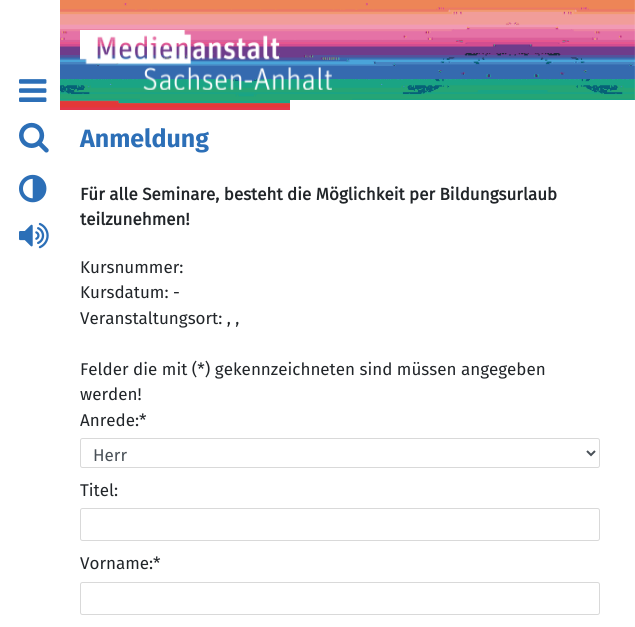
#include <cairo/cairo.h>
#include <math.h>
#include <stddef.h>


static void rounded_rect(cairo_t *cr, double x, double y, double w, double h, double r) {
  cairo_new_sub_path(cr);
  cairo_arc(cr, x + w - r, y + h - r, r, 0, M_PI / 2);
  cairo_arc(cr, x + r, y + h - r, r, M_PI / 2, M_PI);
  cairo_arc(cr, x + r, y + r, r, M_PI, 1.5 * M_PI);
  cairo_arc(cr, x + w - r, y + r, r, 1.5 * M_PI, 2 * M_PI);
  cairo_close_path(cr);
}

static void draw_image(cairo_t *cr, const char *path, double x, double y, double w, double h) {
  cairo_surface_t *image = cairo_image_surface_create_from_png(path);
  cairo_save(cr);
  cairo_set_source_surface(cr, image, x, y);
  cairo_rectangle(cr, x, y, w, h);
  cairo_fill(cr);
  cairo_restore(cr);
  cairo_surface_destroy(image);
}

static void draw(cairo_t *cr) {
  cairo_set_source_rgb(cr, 1, 1, 1);
  cairo_paint(cr);
  draw_image(cr, "images/1.png", 60, 0, 575, 110);
  draw_image(cr, "images/2.png", 80, 30, 252, 60);
  draw_image(cr, "images/3.png", 19, 79, 28, 23);
  draw_image(cr, "images/4.png", 19, 122, 30, 31);
  draw_image(cr, "images/5.png", 19, 174, 28, 29);
  draw_image(cr, "images/6.png", 19, 222, 30, 27);
  draw_image(cr, "images/7.png", 60, 100, 575, 527);
  rounded_rect(cr, 80.5, 438.5, 519, 29, 2);
  cairo_set_source_rgb(cr, 217 / 255.0, 217 / 255.0, 217 / 255.0);
  cairo_set_line_width(cr, 1);
  cairo_stroke(cr);
  cairo_new_path(cr);
  cairo_move_to(cr, 587, 451);
  cairo_line_to(cr, 591, 455);
  cairo_line_to(cr, 595, 451);
  cairo_set_source_rgb(cr, 73 / 255.0, 80 / 255.0, 87 / 255.0);
  cairo_set_line_width(cr, 2);
  cairo_stroke(cr);
  rounded_rect(cr, 80.5, 508.5, 519, 32, 2);
  cairo_set_source_rgb(cr, 217 / 255.0, 217 / 255.0, 217 / 255.0);
  cairo_set_line_width(cr, 1);
  cairo_stroke(cr);
  rounded_rect(cr, 80.5, 582.5, 519, 32, 2);
  cairo_stroke(cr);
  cairo_select_font_face(cr, "Fira Sans", CAIRO_FONT_SLANT_NORMAL, CAIRO_FONT_WEIGHT_BOLD);
  cairo_set_font_size(cr, 25);
  cairo_set_source_rgb(cr, 44 / 255.0, 111 / 255.0, 183 / 255.0);
  cairo_move_to(cr, 80, 147);
  cairo_show_text(cr, "Anmeldung");
  cairo_select_font_face(cr, "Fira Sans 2", CAIRO_FONT_SLANT_NORMAL, CAIRO_FONT_WEIGHT_BOLD);
  cairo_set_font_size(cr, 17);
  cairo_set_source_rgb(cr, 33 / 255.0, 37 / 255.0, 41 / 255.0);
  cairo_move_to(cr, 80, 200);
  cairo_show_text(cr, "Für alle Seminare, besteht die Möglichkeit per Bildungsurlaub");
  cairo_move_to(cr, 80, 225);
  cairo_show_text(cr, "teilzunehmen!");
  cairo_select_font_face(cr, "Fira Sans", CAIRO_FONT_SLANT_NORMAL, CAIRO_FONT_WEIGHT_NORMAL);
  cairo_move_to(cr, 80, 273);
  cairo_show_text(cr, "Kursnummer:");
  cairo_move_to(cr, 80, 298);
  cairo_show_text(cr, "Kursdatum: -");
  cairo_move_to(cr, 80, 324);
  cairo_show_text(cr, "Veranstaltungsort: , ,");
  cairo_move_to(cr, 80, 375);
  cairo_show_text(cr, "Felder die mit (*) gekennzeichneten sind müssen angegeben");
  cairo_move_to(cr, 80, 400);
  cairo_show_text(cr, "werden!");
  cairo_move_to(cr, 80, 426);
  cairo_show_text(cr, "Anrede:*");
  cairo_set_source_rgb(cr, 73 / 255.0, 80 / 255.0, 87 / 255.0);
  cairo_move_to(cr, 93, 461);
  cairo_show_text(cr, "Herr");
  cairo_set_source_rgb(cr, 33 / 255.0, 37 / 255.0, 41 / 255.0);
  cairo_move_to(cr, 80, 496);
  cairo_show_text(cr, "Titel:");
  cairo_move_to(cr, 80, 569);
  cairo_show_text(cr, "Vorname:*");
}

int main(void) {
  cairo_surface_t *surface = cairo_image_surface_create(CAIRO_FORMAT_RGB24, 635, 627);
  cairo_t *cr = cairo_create(surface);
  cairo_font_options_t *options = cairo_font_options_create();
  cairo_font_options_set_hint_metrics(options, CAIRO_HINT_METRICS_OFF);
  cairo_font_options_set_hint_style(options, CAIRO_HINT_STYLE_NONE);
  cairo_set_font_options(cr, options);
  cairo_set_miter_limit(cr, 4);
  draw(cr);
  cairo_surface_write_to_png(surface, "out.png");
  cairo_font_options_destroy(options);
  cairo_destroy(cr);
  cairo_surface_destroy(surface);
  return 0;
}
